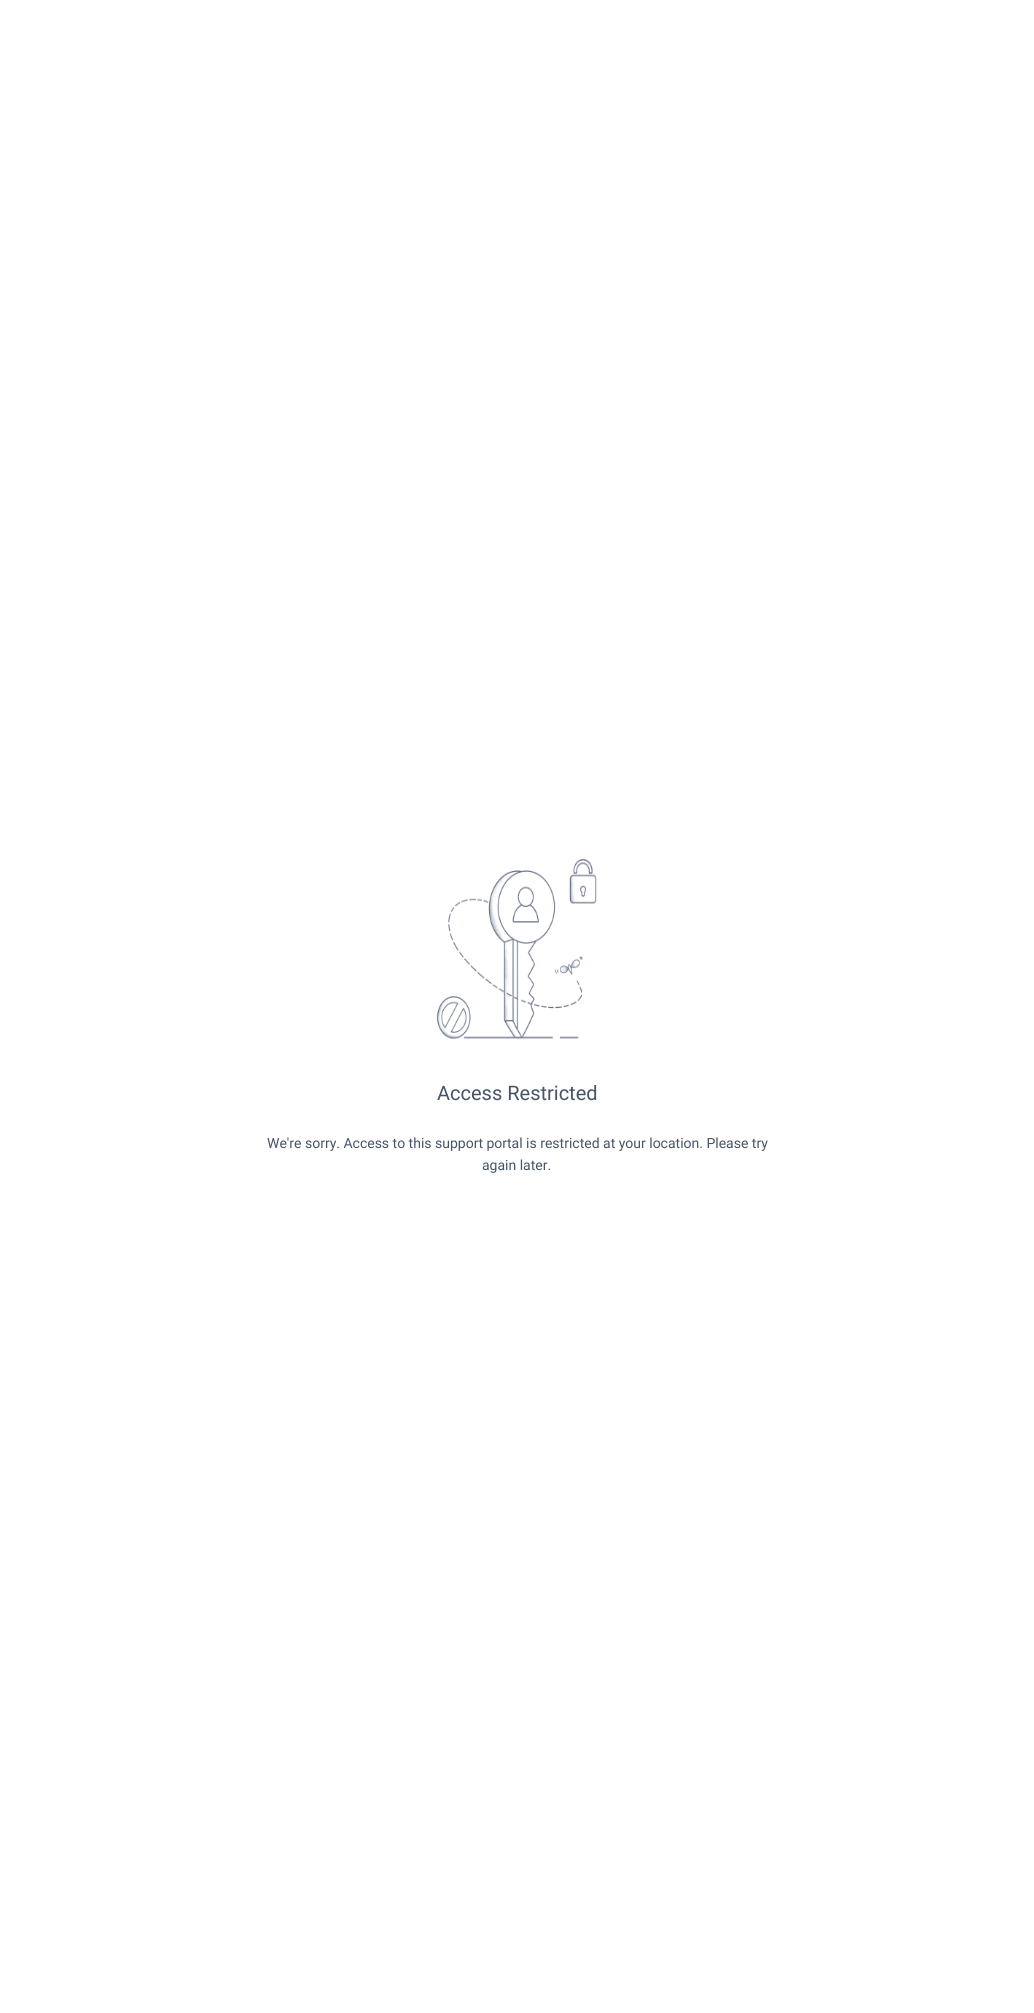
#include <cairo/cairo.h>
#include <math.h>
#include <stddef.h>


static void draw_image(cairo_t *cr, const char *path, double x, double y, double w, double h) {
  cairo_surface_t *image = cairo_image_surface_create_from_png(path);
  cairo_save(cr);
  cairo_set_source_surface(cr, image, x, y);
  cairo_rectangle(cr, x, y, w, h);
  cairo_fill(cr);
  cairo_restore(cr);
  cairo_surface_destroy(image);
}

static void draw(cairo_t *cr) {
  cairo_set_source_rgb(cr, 1, 1, 1);
  cairo_paint(cr);
  draw_image(cr, "images/1.png", 436, 858, 161, 181);
  cairo_select_font_face(cr, "Roboto", CAIRO_FONT_SLANT_NORMAL, CAIRO_FONT_WEIGHT_NORMAL);
  cairo_set_font_size(cr, 20);
  cairo_set_source_rgb(cr, 71 / 255.0, 84 / 255.0, 103 / 255.0);
  cairo_move_to(cr, 437, 1100);
  cairo_show_text(cr, "Access Restricted");
  cairo_set_font_size(cr, 14);
  cairo_move_to(cr, 267, 1148);
  cairo_show_text(cr, "We're sorry. Access to this support portal is restricted at your location. Please try");
  cairo_move_to(cr, 482, 1170);
  cairo_show_text(cr, "again later.");
}

int main(void) {
  cairo_surface_t *surface = cairo_image_surface_create(CAIRO_FORMAT_RGB24, 1034, 2013);
  cairo_t *cr = cairo_create(surface);
  cairo_font_options_t *options = cairo_font_options_create();
  cairo_font_options_set_hint_metrics(options, CAIRO_HINT_METRICS_OFF);
  cairo_font_options_set_hint_style(options, CAIRO_HINT_STYLE_NONE);
  cairo_set_font_options(cr, options);
  cairo_set_miter_limit(cr, 4);
  draw(cr);
  cairo_surface_write_to_png(surface, "out.png");
  cairo_font_options_destroy(options);
  cairo_destroy(cr);
  cairo_surface_destroy(surface);
  return 0;
}
